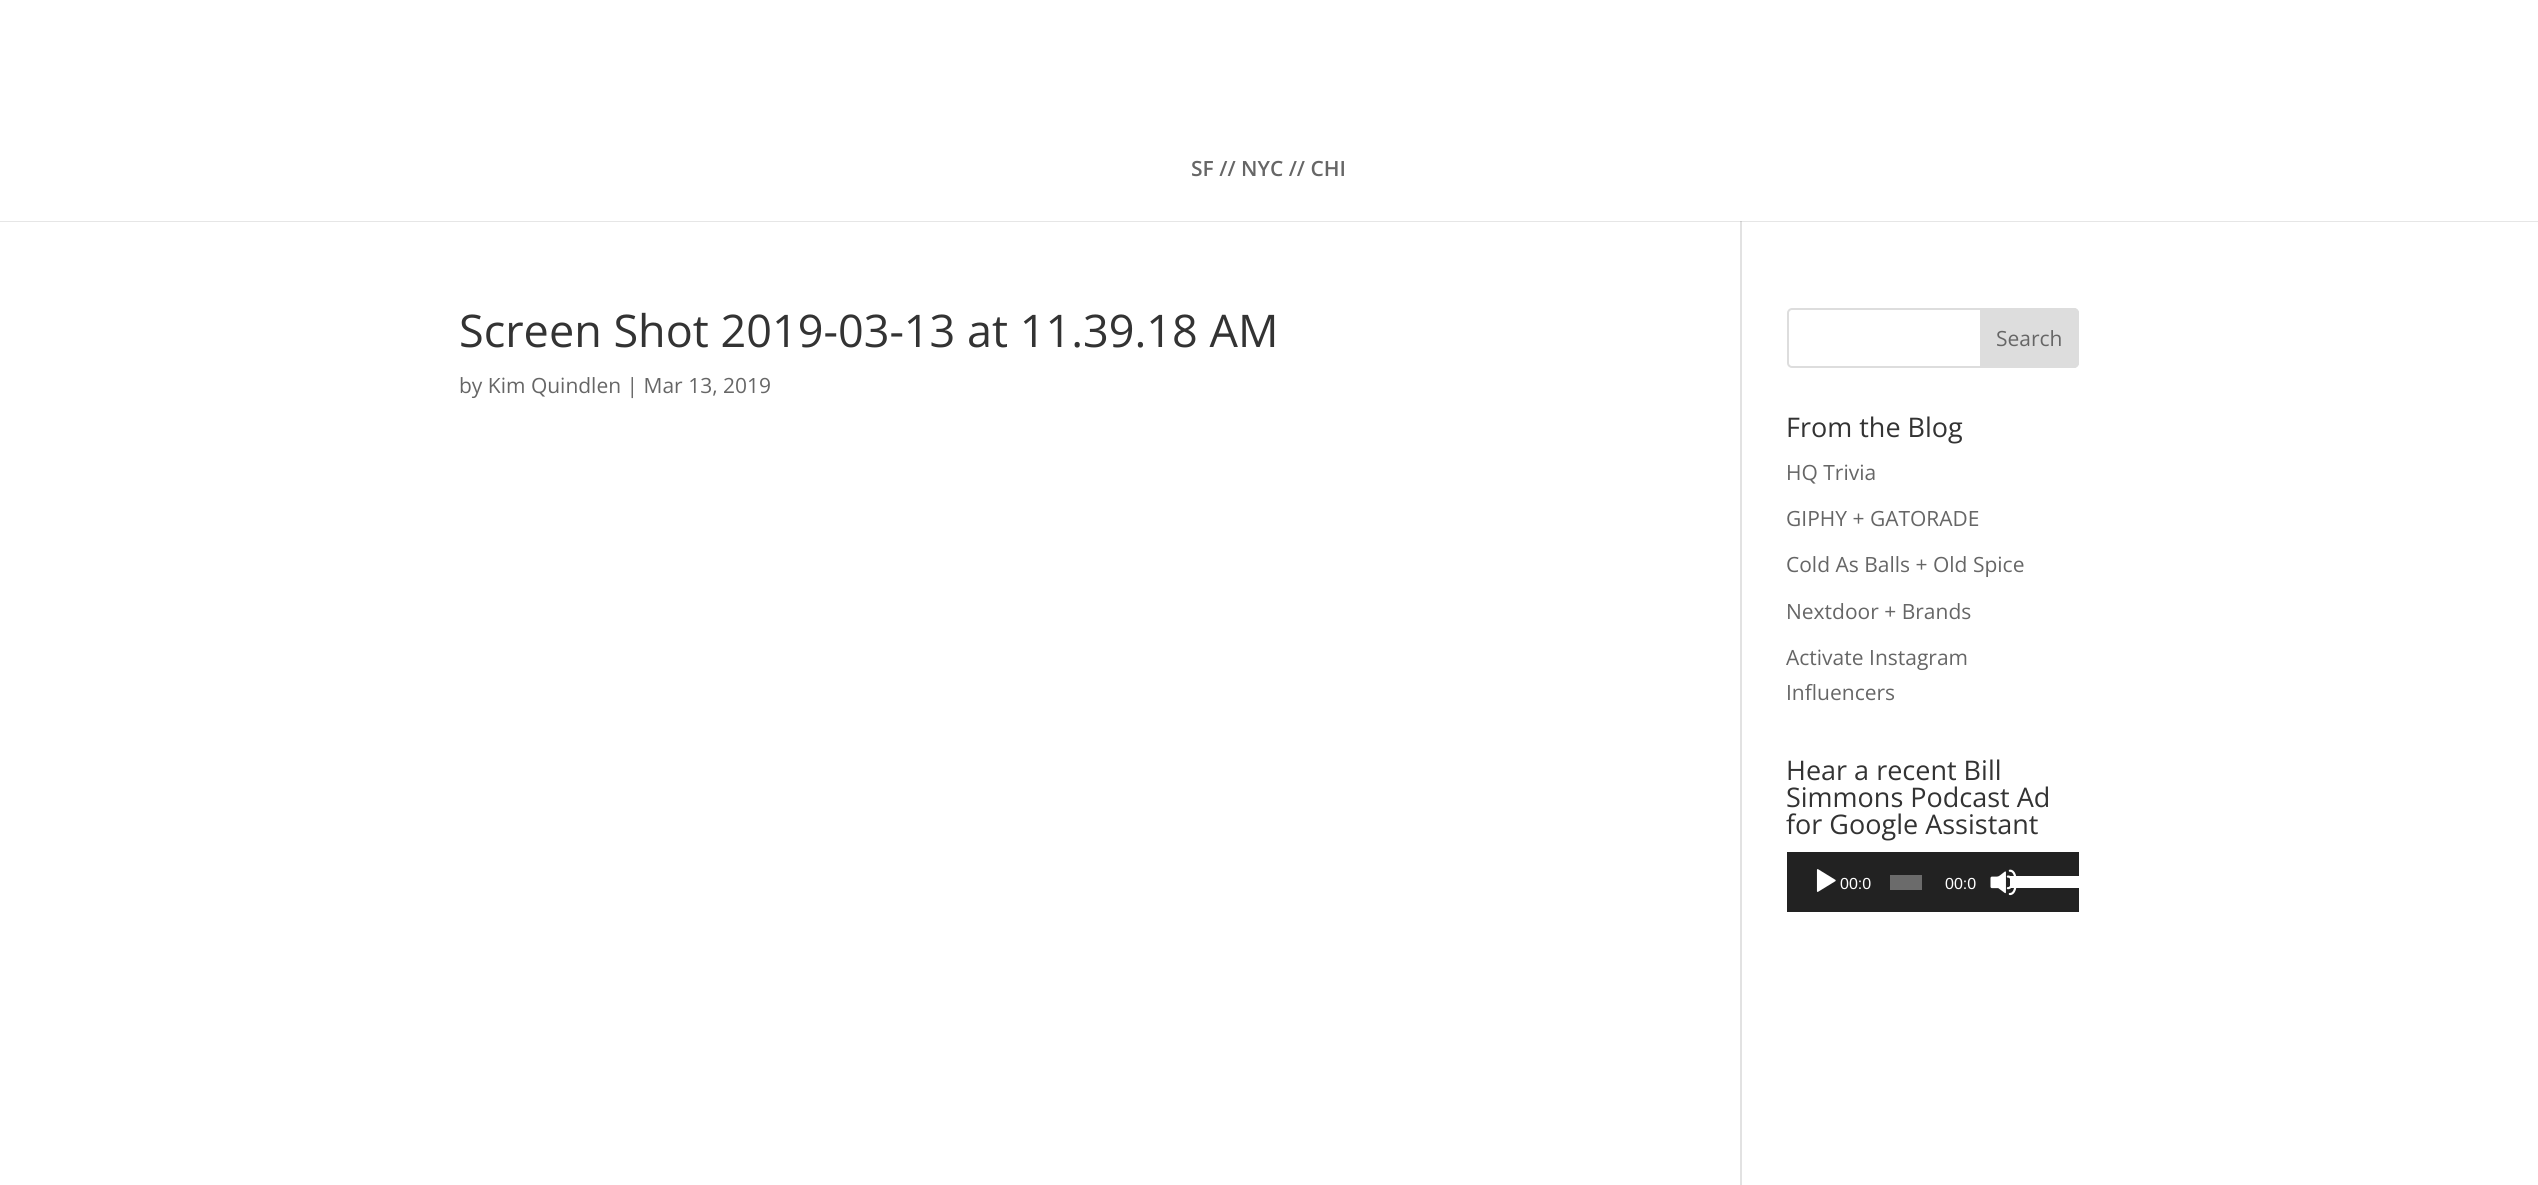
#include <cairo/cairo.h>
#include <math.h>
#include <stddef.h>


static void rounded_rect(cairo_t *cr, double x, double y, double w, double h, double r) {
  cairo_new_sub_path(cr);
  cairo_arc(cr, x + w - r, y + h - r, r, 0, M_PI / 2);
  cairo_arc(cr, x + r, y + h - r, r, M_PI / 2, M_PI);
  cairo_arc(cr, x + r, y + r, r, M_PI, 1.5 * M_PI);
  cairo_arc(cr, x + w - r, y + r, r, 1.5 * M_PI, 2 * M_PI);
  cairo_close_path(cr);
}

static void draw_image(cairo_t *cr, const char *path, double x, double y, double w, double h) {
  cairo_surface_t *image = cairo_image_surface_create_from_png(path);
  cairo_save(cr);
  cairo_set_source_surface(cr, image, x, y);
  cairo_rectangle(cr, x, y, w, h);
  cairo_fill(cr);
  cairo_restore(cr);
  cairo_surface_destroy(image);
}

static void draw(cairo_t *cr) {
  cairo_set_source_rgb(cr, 1, 1, 1);
  cairo_paint(cr);
  cairo_set_source_rgb(cr, 226 / 255.0, 226 / 255.0, 226 / 255.0);
  cairo_rectangle(cr, 1740, 221, 2, 964);
  cairo_fill(cr);
  cairo_set_source_rgba(cr, 0, 0, 0, 0.1);
  cairo_rectangle(cr, 0, 221, 2538, 1);
  cairo_fill(cr);
  rounded_rect(cr, 1788, 309, 290, 58, 4);
  cairo_set_source_rgb(cr, 221 / 255.0, 221 / 255.0, 221 / 255.0);
  cairo_stroke(cr);
  cairo_new_path(cr);
  cairo_move_to(cr, 1981, 309);
  cairo_line_to(cr, 2074, 309);
  cairo_curve_to(cr, 2076, 309, 2078, 311, 2078, 313);
  cairo_line_to(cr, 2078, 363);
  cairo_curve_to(cr, 2078, 365, 2076, 367, 2074, 367);
  cairo_line_to(cr, 1981, 367);
  cairo_close_path(cr);
  cairo_fill_preserve(cr);
  cairo_stroke(cr);
  cairo_set_source_rgb(cr, 34 / 255.0, 34 / 255.0, 34 / 255.0);
  cairo_rectangle(cr, 1787, 852, 292, 60);
  cairo_fill(cr);
  draw_image(cr, "images/1.png", 1816, 869, 20, 23);
  cairo_set_source_rgb(cr, 107 / 255.0, 107 / 255.0, 107 / 255.0);
  cairo_rectangle(cr, 1890, 875, 32, 15);
  cairo_fill(cr);
  draw_image(cr, "images/2.png", 1990, 869, 27, 27);
  cairo_set_source_rgb(cr, 1, 1, 1);
  cairo_rectangle(cr, 2010, 876, 69, 12);
  cairo_fill(cr);
  cairo_select_font_face(cr, "Open Sans SemiBold", CAIRO_FONT_SLANT_NORMAL, CAIRO_FONT_WEIGHT_NORMAL);
  cairo_set_font_size(cr, 21);
  cairo_set_source_rgb(cr, 102 / 255.0, 102 / 255.0, 102 / 255.0);
  cairo_move_to(cr, 1191, 176);
  cairo_show_text(cr, "SF // NYC // CHI");
  cairo_select_font_face(cr, "Open Sans", CAIRO_FONT_SLANT_NORMAL, CAIRO_FONT_WEIGHT_NORMAL);
  cairo_set_font_size(cr, 45);
  cairo_set_source_rgb(cr, 51 / 255.0, 51 / 255.0, 51 / 255.0);
  cairo_move_to(cr, 459, 347);
  cairo_show_text(cr, "Screen Shot 2019-03-13 at 11.39.18 AM");
  cairo_set_font_size(cr, 21);
  cairo_set_source_rgb(cr, 102 / 255.0, 102 / 255.0, 102 / 255.0);
  cairo_move_to(cr, 459, 393);
  cairo_show_text(cr, "by Kim Quindlen | Mar 13, 2019");
  cairo_move_to(cr, 1996, 346);
  cairo_show_text(cr, "Search");
  cairo_set_font_size(cr, 27);
  cairo_set_source_rgb(cr, 51 / 255.0, 51 / 255.0, 51 / 255.0);
  cairo_move_to(cr, 1786, 437);
  cairo_show_text(cr, "From the Blog");
  cairo_set_font_size(cr, 21);
  cairo_set_source_rgb(cr, 102 / 255.0, 102 / 255.0, 102 / 255.0);
  cairo_move_to(cr, 1786, 480);
  cairo_show_text(cr, "HQ Trivia");
  cairo_move_to(cr, 1786, 526);
  cairo_show_text(cr, "GIPHY + GATORADE");
  cairo_move_to(cr, 1786, 572);
  cairo_show_text(cr, "Cold As Balls + Old Spice");
  cairo_move_to(cr, 1786, 619);
  cairo_show_text(cr, "Nextdoor + Brands");
  cairo_move_to(cr, 1786, 665);
  cairo_show_text(cr, "Activate Instagram");
  cairo_move_to(cr, 1786, 700);
  cairo_show_text(cr, "Influencers");
  cairo_set_font_size(cr, 27);
  cairo_set_source_rgb(cr, 51 / 255.0, 51 / 255.0, 51 / 255.0);
  cairo_move_to(cr, 1786, 780);
  cairo_show_text(cr, "Hear a recent Bill");
  cairo_move_to(cr, 1786, 807);
  cairo_show_text(cr, "Simmons Podcast Ad");
  cairo_move_to(cr, 1786, 834);
  cairo_show_text(cr, "for Google Assistant");
  cairo_select_font_face(cr, "Liberation Sans", CAIRO_FONT_SLANT_NORMAL, CAIRO_FONT_WEIGHT_NORMAL);
  cairo_set_font_size(cr, 16);
  cairo_set_source_rgb(cr, 1, 1, 1);
  cairo_move_to(cr, 1840, 889);
  cairo_show_text(cr, "00:0");
  cairo_move_to(cr, 1945, 889);
  cairo_show_text(cr, "00:0");
}

int main(void) {
  cairo_surface_t *surface = cairo_image_surface_create(CAIRO_FORMAT_RGB24, 2538, 1185);
  cairo_t *cr = cairo_create(surface);
  cairo_font_options_t *options = cairo_font_options_create();
  cairo_font_options_set_hint_metrics(options, CAIRO_HINT_METRICS_OFF);
  cairo_font_options_set_hint_style(options, CAIRO_HINT_STYLE_NONE);
  cairo_set_font_options(cr, options);
  cairo_set_miter_limit(cr, 4);
  draw(cr);
  cairo_surface_write_to_png(surface, "out.png");
  cairo_font_options_destroy(options);
  cairo_destroy(cr);
  cairo_surface_destroy(surface);
  return 0;
}
